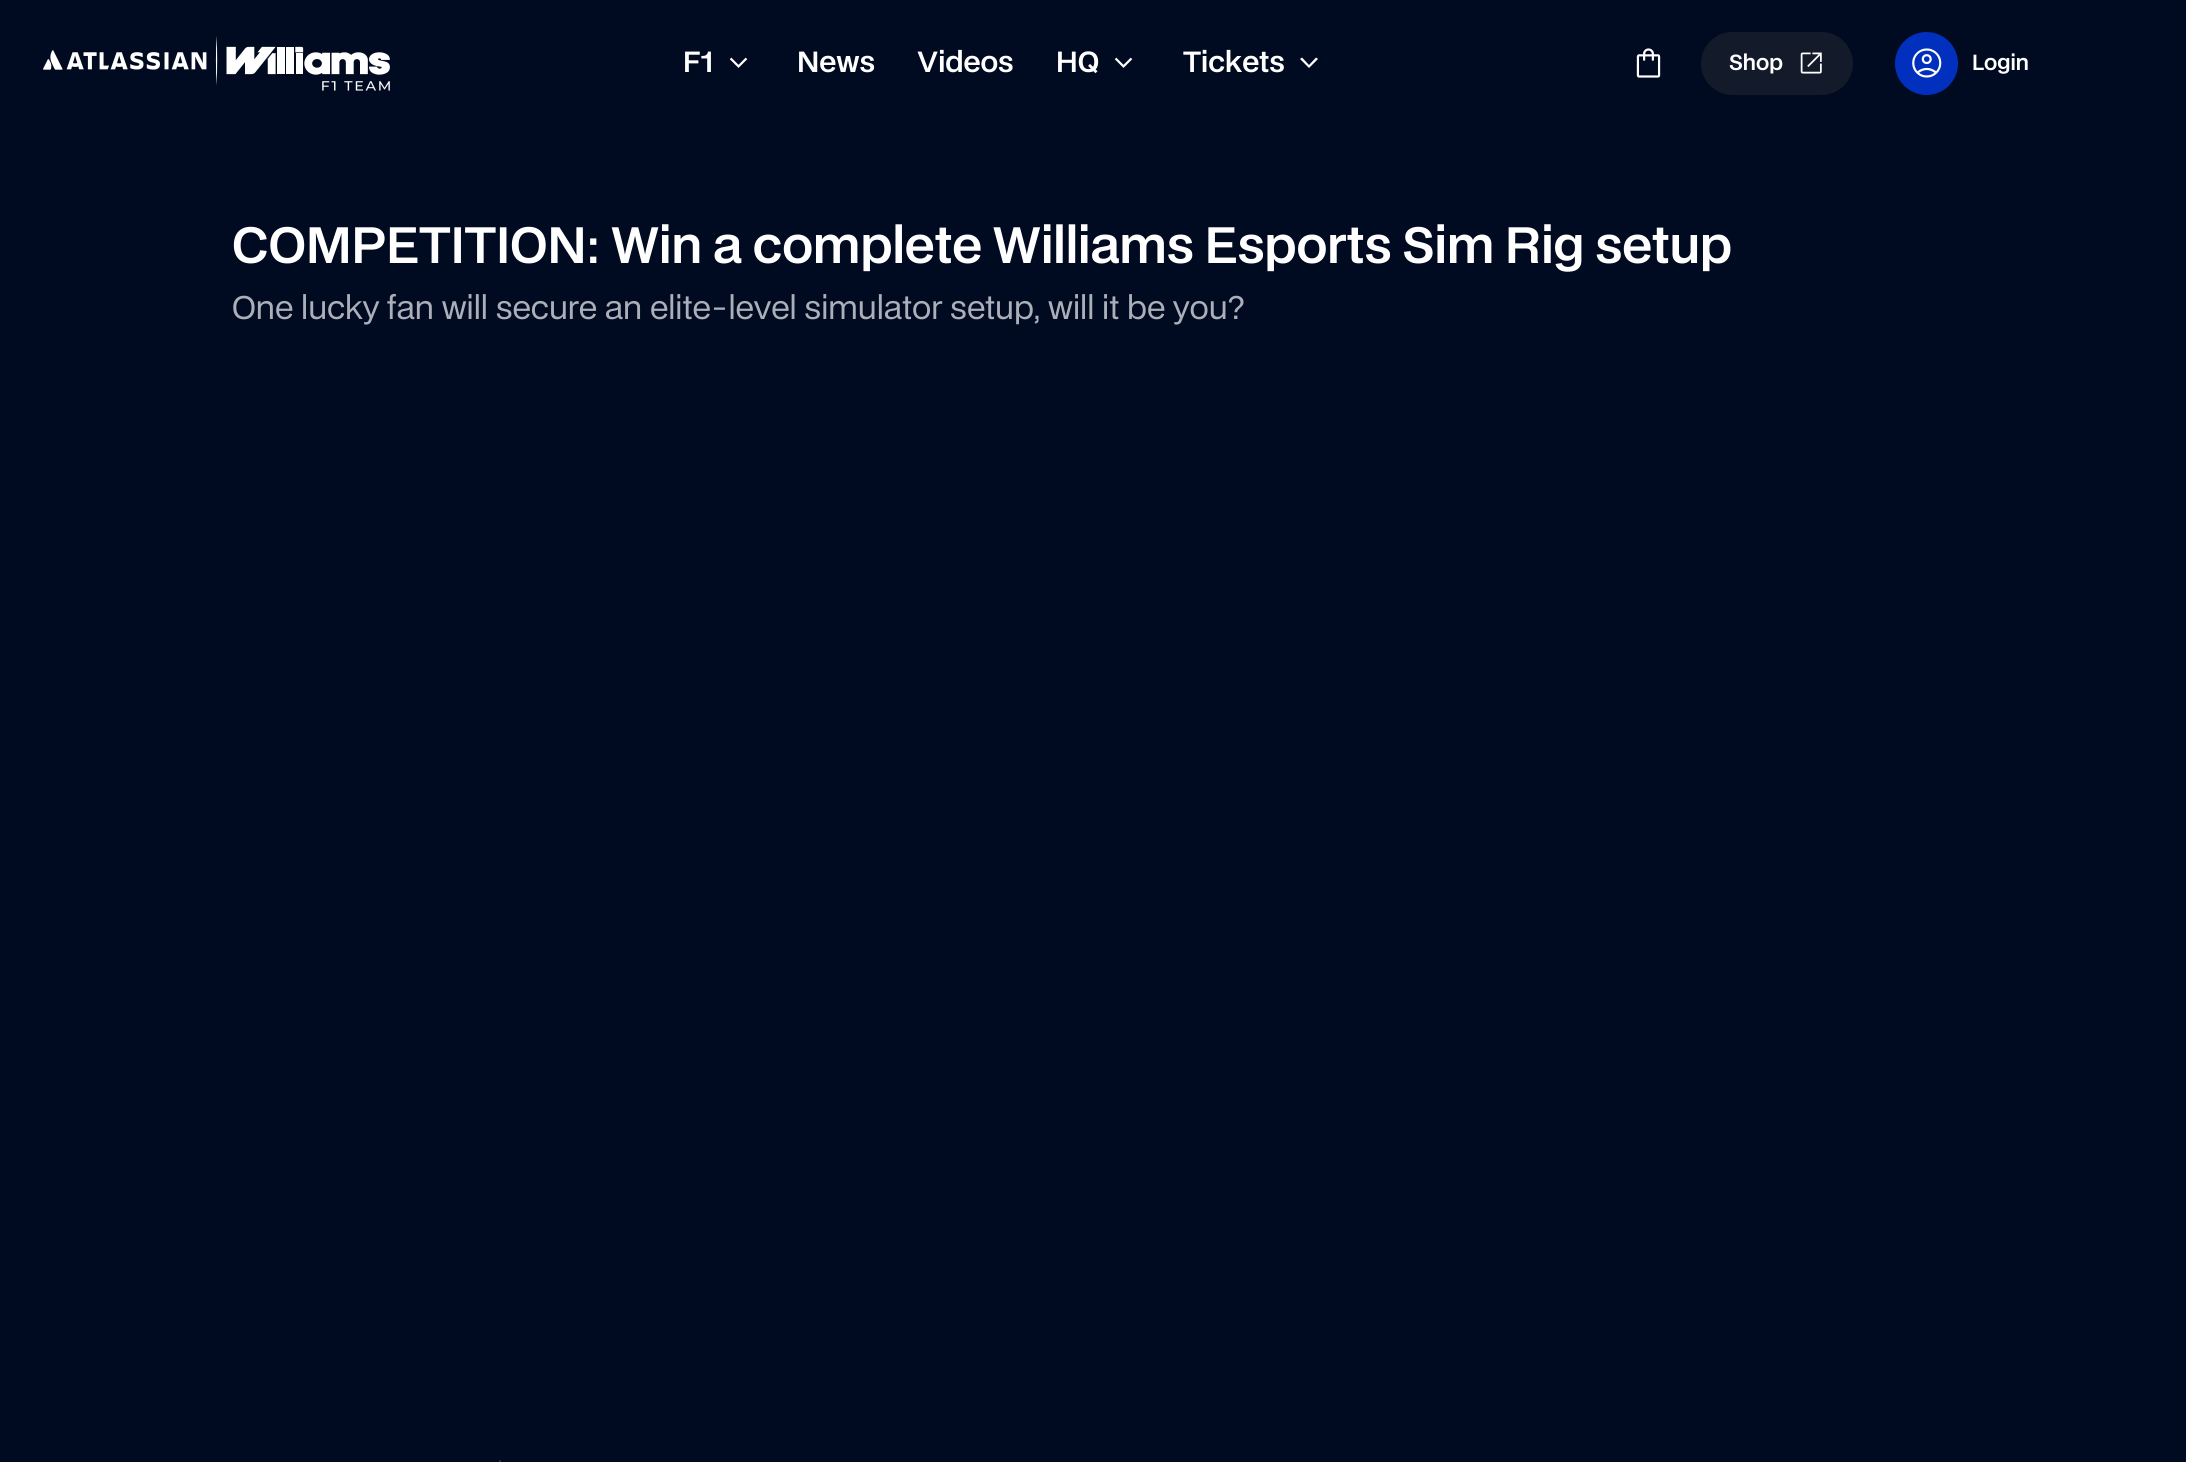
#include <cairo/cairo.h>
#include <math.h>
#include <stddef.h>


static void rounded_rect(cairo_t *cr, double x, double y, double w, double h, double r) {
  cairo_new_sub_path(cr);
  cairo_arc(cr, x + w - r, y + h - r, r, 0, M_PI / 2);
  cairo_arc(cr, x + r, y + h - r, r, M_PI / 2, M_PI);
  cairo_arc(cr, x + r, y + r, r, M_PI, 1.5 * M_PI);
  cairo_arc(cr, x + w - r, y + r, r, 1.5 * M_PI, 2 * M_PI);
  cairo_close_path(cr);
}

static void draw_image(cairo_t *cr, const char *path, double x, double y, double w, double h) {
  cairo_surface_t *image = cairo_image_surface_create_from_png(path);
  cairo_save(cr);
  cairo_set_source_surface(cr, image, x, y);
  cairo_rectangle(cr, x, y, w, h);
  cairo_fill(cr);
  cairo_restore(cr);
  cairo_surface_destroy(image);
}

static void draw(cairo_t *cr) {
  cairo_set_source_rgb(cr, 0, 10 / 255.0, 32 / 255.0);
  cairo_paint(cr);
  draw_image(cr, "images/1.png", 43, 36, 347, 55);
  draw_image(cr, "images/2.png", 729, 57, 19, 11);
  draw_image(cr, "images/2.png", 1114, 57, 19, 11);
  cairo_set_source_rgb(cr, 1, 1, 1);
  cairo_new_path(cr);
  cairo_move_to(cr, 1309, 68);
  cairo_line_to(cr, 1300, 59);
  cairo_line_to(cr, 1302, 57.5);
  cairo_line_to(cr, 1309, 65);
  cairo_line_to(cr, 1316, 57.5);
  cairo_line_to(cr, 1318, 59);
  cairo_close_path(cr);
  cairo_fill(cr);
  draw_image(cr, "images/3.png", 1636, 48, 25, 30);
  cairo_set_source_rgb(cr, 19 / 255.0, 26 / 255.0, 42 / 255.0);
  rounded_rect(cr, 1701, 32, 152, 63, 31.5);
  cairo_fill(cr);
  draw_image(cr, "images/4.png", 1800, 52, 22, 22);
  cairo_set_source_rgb(cr, 2 / 255.0, 48 / 255.0, 190 / 255.0);
  cairo_arc(cr, 1926.5, 63.5, 31.5, 0, 2 * M_PI);
  cairo_fill(cr);
  draw_image(cr, "images/5.png", 1912, 48, 30, 30);
  cairo_set_source_rgb(cr, 38 / 255.0, 47 / 255.0, 65 / 255.0);
  cairo_rectangle(cr, 499, 1460, 2, 2);
  cairo_fill(cr);
  cairo_select_font_face(cr, "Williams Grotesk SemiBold", CAIRO_FONT_SLANT_NORMAL, CAIRO_FONT_WEIGHT_NORMAL);
  cairo_set_font_size(cr, 28);
  cairo_set_source_rgb(cr, 1, 1, 1);
  cairo_move_to(cr, 683, 72);
  cairo_show_text(cr, "F1");
  cairo_move_to(cr, 797, 72);
  cairo_show_text(cr, "News");
  cairo_move_to(cr, 917, 72);
  cairo_show_text(cr, "Videos");
  cairo_move_to(cr, 1056, 72);
  cairo_show_text(cr, "HQ");
  cairo_move_to(cr, 1183, 72);
  cairo_show_text(cr, "Tickets");
  cairo_set_font_size(cr, 21);
  cairo_move_to(cr, 1729, 70);
  cairo_show_text(cr, "Shop");
  cairo_move_to(cr, 1972, 70);
  cairo_show_text(cr, "Login");
  cairo_set_font_size(cr, 49);
  cairo_move_to(cr, 232, 263);
  cairo_show_text(cr, "COMPETITION: Win a complete Williams Esports Sim Rig setup");
  cairo_select_font_face(cr, "Williams Grotesk", CAIRO_FONT_SLANT_NORMAL, CAIRO_FONT_WEIGHT_NORMAL);
  cairo_set_font_size(cr, 31.5);
  cairo_set_source_rgb(cr, 171 / 255.0, 175 / 255.0, 185 / 255.0);
  cairo_move_to(cr, 232, 319);
  cairo_show_text(cr, "One lucky fan will secure an elite-level simulator setup, will it be you?");
}

int main(void) {
  cairo_surface_t *surface = cairo_image_surface_create(CAIRO_FORMAT_RGB24, 2186, 1462);
  cairo_t *cr = cairo_create(surface);
  cairo_font_options_t *options = cairo_font_options_create();
  cairo_font_options_set_hint_metrics(options, CAIRO_HINT_METRICS_OFF);
  cairo_font_options_set_hint_style(options, CAIRO_HINT_STYLE_NONE);
  cairo_set_font_options(cr, options);
  cairo_set_miter_limit(cr, 4);
  draw(cr);
  cairo_surface_write_to_png(surface, "out.png");
  cairo_font_options_destroy(options);
  cairo_destroy(cr);
  cairo_surface_destroy(surface);
  return 0;
}
